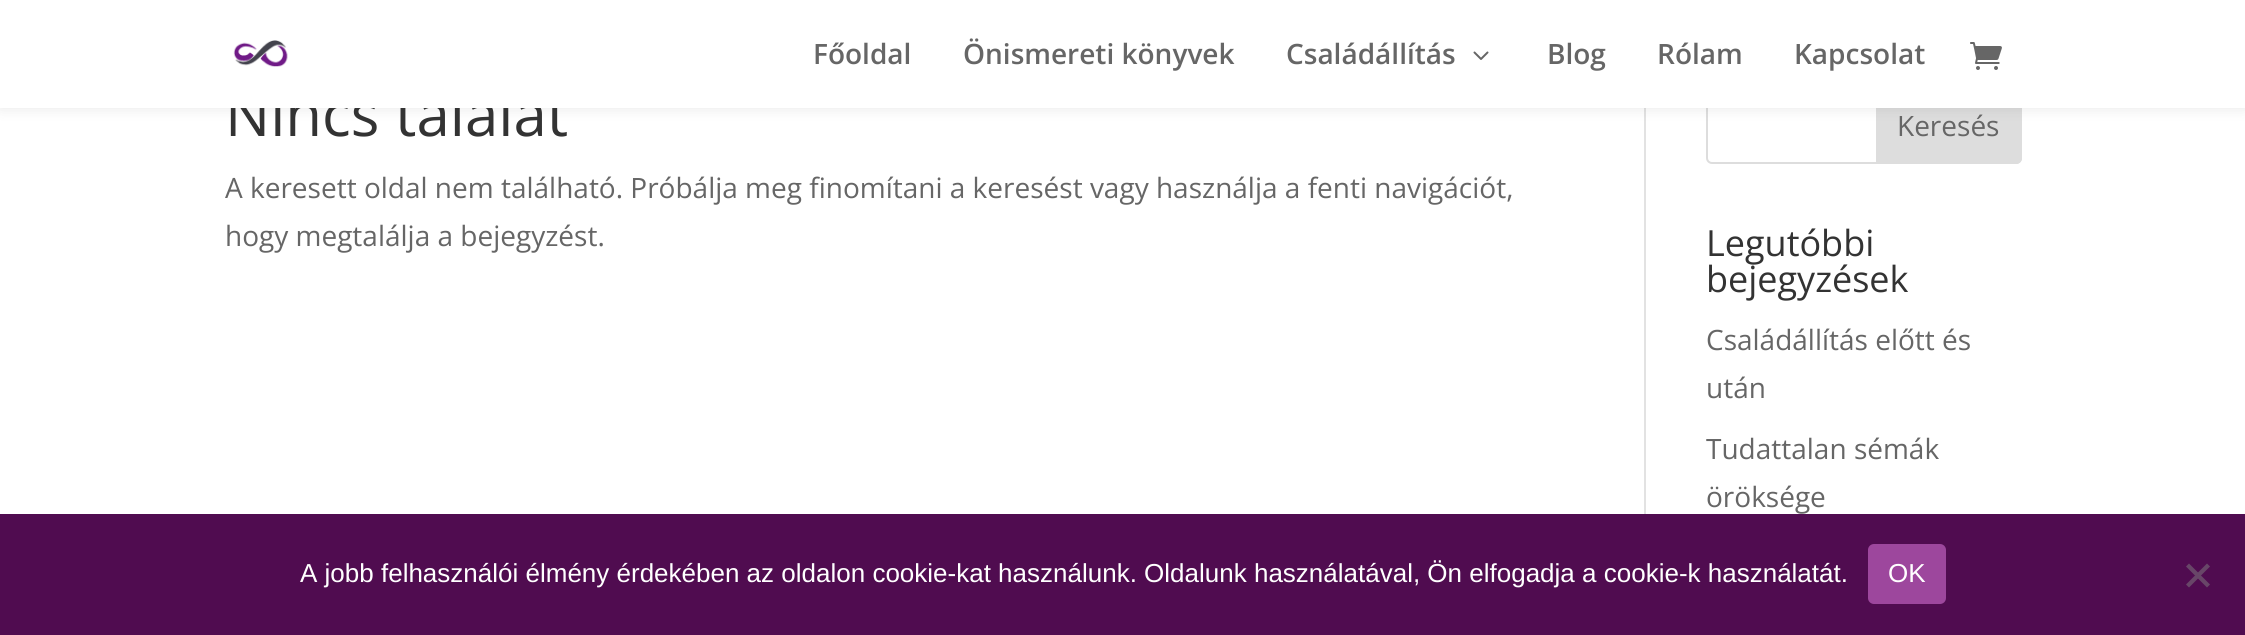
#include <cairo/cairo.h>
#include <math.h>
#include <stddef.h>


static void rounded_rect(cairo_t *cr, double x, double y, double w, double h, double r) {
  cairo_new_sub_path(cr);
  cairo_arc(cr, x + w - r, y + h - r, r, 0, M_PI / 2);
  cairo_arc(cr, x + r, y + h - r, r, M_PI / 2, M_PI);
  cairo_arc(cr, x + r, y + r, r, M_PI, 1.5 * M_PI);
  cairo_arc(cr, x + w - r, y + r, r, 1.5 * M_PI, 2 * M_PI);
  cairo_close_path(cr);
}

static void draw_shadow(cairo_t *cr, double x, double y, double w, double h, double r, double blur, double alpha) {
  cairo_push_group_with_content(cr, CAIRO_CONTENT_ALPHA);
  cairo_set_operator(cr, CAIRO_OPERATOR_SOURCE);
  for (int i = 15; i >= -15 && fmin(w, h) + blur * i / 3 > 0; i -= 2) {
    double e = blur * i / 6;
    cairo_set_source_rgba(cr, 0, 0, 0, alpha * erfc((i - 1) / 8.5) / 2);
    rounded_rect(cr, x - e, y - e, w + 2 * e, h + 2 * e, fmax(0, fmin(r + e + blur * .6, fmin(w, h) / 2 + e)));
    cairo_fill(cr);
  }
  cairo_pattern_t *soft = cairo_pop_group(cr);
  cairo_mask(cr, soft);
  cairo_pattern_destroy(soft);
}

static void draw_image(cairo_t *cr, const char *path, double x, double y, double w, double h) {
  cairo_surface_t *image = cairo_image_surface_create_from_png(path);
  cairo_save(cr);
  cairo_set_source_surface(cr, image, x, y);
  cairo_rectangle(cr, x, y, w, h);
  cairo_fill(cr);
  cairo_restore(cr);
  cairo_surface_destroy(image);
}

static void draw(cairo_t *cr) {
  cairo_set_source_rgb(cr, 1, 1, 1);
  cairo_paint(cr);
  rounded_rect(cr, 1707, 85, 314, 78, 5);
  cairo_set_source_rgb(cr, 221 / 255.0, 221 / 255.0, 221 / 255.0);
  cairo_stroke(cr);
  cairo_new_path(cr);
  cairo_move_to(cr, 1877, 85);
  cairo_line_to(cr, 2016, 85);
  cairo_curve_to(cr, 2019, 85, 2021, 87, 2021, 90);
  cairo_line_to(cr, 2021, 158);
  cairo_curve_to(cr, 2021, 161, 2019, 163, 2016, 163);
  cairo_line_to(cr, 1877, 163);
  cairo_close_path(cr);
  cairo_fill_preserve(cr);
  cairo_stroke(cr);
  cairo_set_source_rgb(cr, 226 / 255.0, 226 / 255.0, 226 / 255.0);
  cairo_rectangle(cr, 1644, 108, 2, 406);
  cairo_fill(cr);
  cairo_set_source_rgb(cr, 0, 0, 0);
  draw_shadow(cr, 0, 0, 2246, 108, 0, 7, 0.1);
  cairo_set_source_rgb(cr, 80 / 255.0, 12 / 255.0, 80 / 255.0);
  cairo_rectangle(cr, 0, 514, 2245, 121);
  cairo_fill(cr);
  cairo_set_source_rgb(cr, 157 / 255.0, 71 / 255.0, 157 / 255.0);
  rounded_rect(cr, 1868, 544, 78, 60, 6);
  cairo_fill(cr);
  cairo_set_source_rgb(cr, 104 / 255.0, 70 / 255.0, 104 / 255.0);
  cairo_new_path(cr);
  cairo_move_to(cr, 2207, 563.5);
  cairo_line_to(cr, 2210, 566.5);
  cairo_line_to(cr, 2189, 587.5);
  cairo_line_to(cr, 2186, 584.5);
  cairo_close_path(cr);
  cairo_fill(cr);
  cairo_new_path(cr);
  cairo_move_to(cr, 2186, 566.5);
  cairo_line_to(cr, 2189, 563.5);
  cairo_line_to(cr, 2210, 584.5);
  cairo_line_to(cr, 2207, 587.5);
  cairo_close_path(cr);
  cairo_fill(cr);
  cairo_select_font_face(cr, "Open Sans", CAIRO_FONT_SLANT_NORMAL, CAIRO_FONT_WEIGHT_NORMAL);
  cairo_set_font_size(cr, 60);
  cairo_set_source_rgb(cr, 51 / 255.0, 51 / 255.0, 51 / 255.0);
  cairo_move_to(cr, 225, 136);
  cairo_show_text(cr, "Nincs találat");
  cairo_set_source_rgb(cr, 1, 1, 1);
  cairo_rectangle(cr, 0, 0, 2245, 108);
  cairo_fill(cr);
  draw_image(cr, "images/3.png", 1970, 42, 32, 28);
  cairo_select_font_face(cr, "Open Sans SemiBold", CAIRO_FONT_SLANT_NORMAL, CAIRO_FONT_WEIGHT_NORMAL);
  cairo_set_font_size(cr, 28);
  cairo_set_source_rgb(cr, 102 / 255.0, 102 / 255.0, 102 / 255.0);
  cairo_move_to(cr, 1794, 64);
  cairo_show_text(cr, "Kapcsolat");
  cairo_move_to(cr, 1657, 64);
  cairo_show_text(cr, "Rólam");
  cairo_move_to(cr, 1547, 64);
  cairo_show_text(cr, "Blog");
  draw_image(cr, "images/2.png", 1473, 51, 16, 9);
  cairo_move_to(cr, 1286, 64);
  cairo_show_text(cr, "Családállítás");
  cairo_move_to(cr, 963, 64);
  cairo_show_text(cr, "Önismereti könyvek");
  cairo_move_to(cr, 813, 64);
  cairo_show_text(cr, "Főoldal");
  draw_image(cr, "images/1.png", 233, 40, 55, 27);
  cairo_select_font_face(cr, "Open Sans", CAIRO_FONT_SLANT_NORMAL, CAIRO_FONT_WEIGHT_NORMAL);
  cairo_move_to(cr, 225, 198);
  cairo_show_text(cr, "A keresett oldal nem található. Próbálja meg finomítani a keresést vagy használja a fenti navigációt,");
  cairo_move_to(cr, 225, 246);
  cairo_show_text(cr, "hogy megtalálja a bejegyzést.");
  cairo_move_to(cr, 1897, 136);
  cairo_show_text(cr, "Keresés");
  cairo_set_font_size(cr, 36);
  cairo_set_source_rgb(cr, 51 / 255.0, 51 / 255.0, 51 / 255.0);
  cairo_move_to(cr, 1706, 256);
  cairo_show_text(cr, "Legutóbbi");
  cairo_move_to(cr, 1706, 292);
  cairo_show_text(cr, "bejegyzések");
  cairo_set_font_size(cr, 28);
  cairo_set_source_rgb(cr, 102 / 255.0, 102 / 255.0, 102 / 255.0);
  cairo_move_to(cr, 1706, 350);
  cairo_show_text(cr, "Családállítás előtt és");
  cairo_move_to(cr, 1706, 398);
  cairo_show_text(cr, "után");
  cairo_move_to(cr, 1706, 459);
  cairo_show_text(cr, "Tudattalan sémák");
  cairo_move_to(cr, 1706, 507);
  cairo_show_text(cr, "öröksége");
  cairo_select_font_face(cr, "Liberation Sans", CAIRO_FONT_SLANT_NORMAL, CAIRO_FONT_WEIGHT_NORMAL);
  cairo_set_font_size(cr, 26);
  cairo_set_source_rgb(cr, 1, 1, 1);
  cairo_move_to(cr, 300, 582);
  cairo_show_text(cr, "A jobb felhasználói élmény érdekében az oldalon cookie-kat használunk. Oldalunk használatával, Ön elfogadja a cookie-k használatát.");
  cairo_move_to(cr, 1888, 582);
  cairo_show_text(cr, "OK");
}

int main(void) {
  cairo_surface_t *surface = cairo_image_surface_create(CAIRO_FORMAT_RGB24, 2245, 635);
  cairo_t *cr = cairo_create(surface);
  cairo_font_options_t *options = cairo_font_options_create();
  cairo_font_options_set_hint_metrics(options, CAIRO_HINT_METRICS_OFF);
  cairo_font_options_set_hint_style(options, CAIRO_HINT_STYLE_NONE);
  cairo_set_font_options(cr, options);
  cairo_set_miter_limit(cr, 4);
  draw(cr);
  cairo_surface_write_to_png(surface, "out.png");
  cairo_font_options_destroy(options);
  cairo_destroy(cr);
  cairo_surface_destroy(surface);
  return 0;
}
